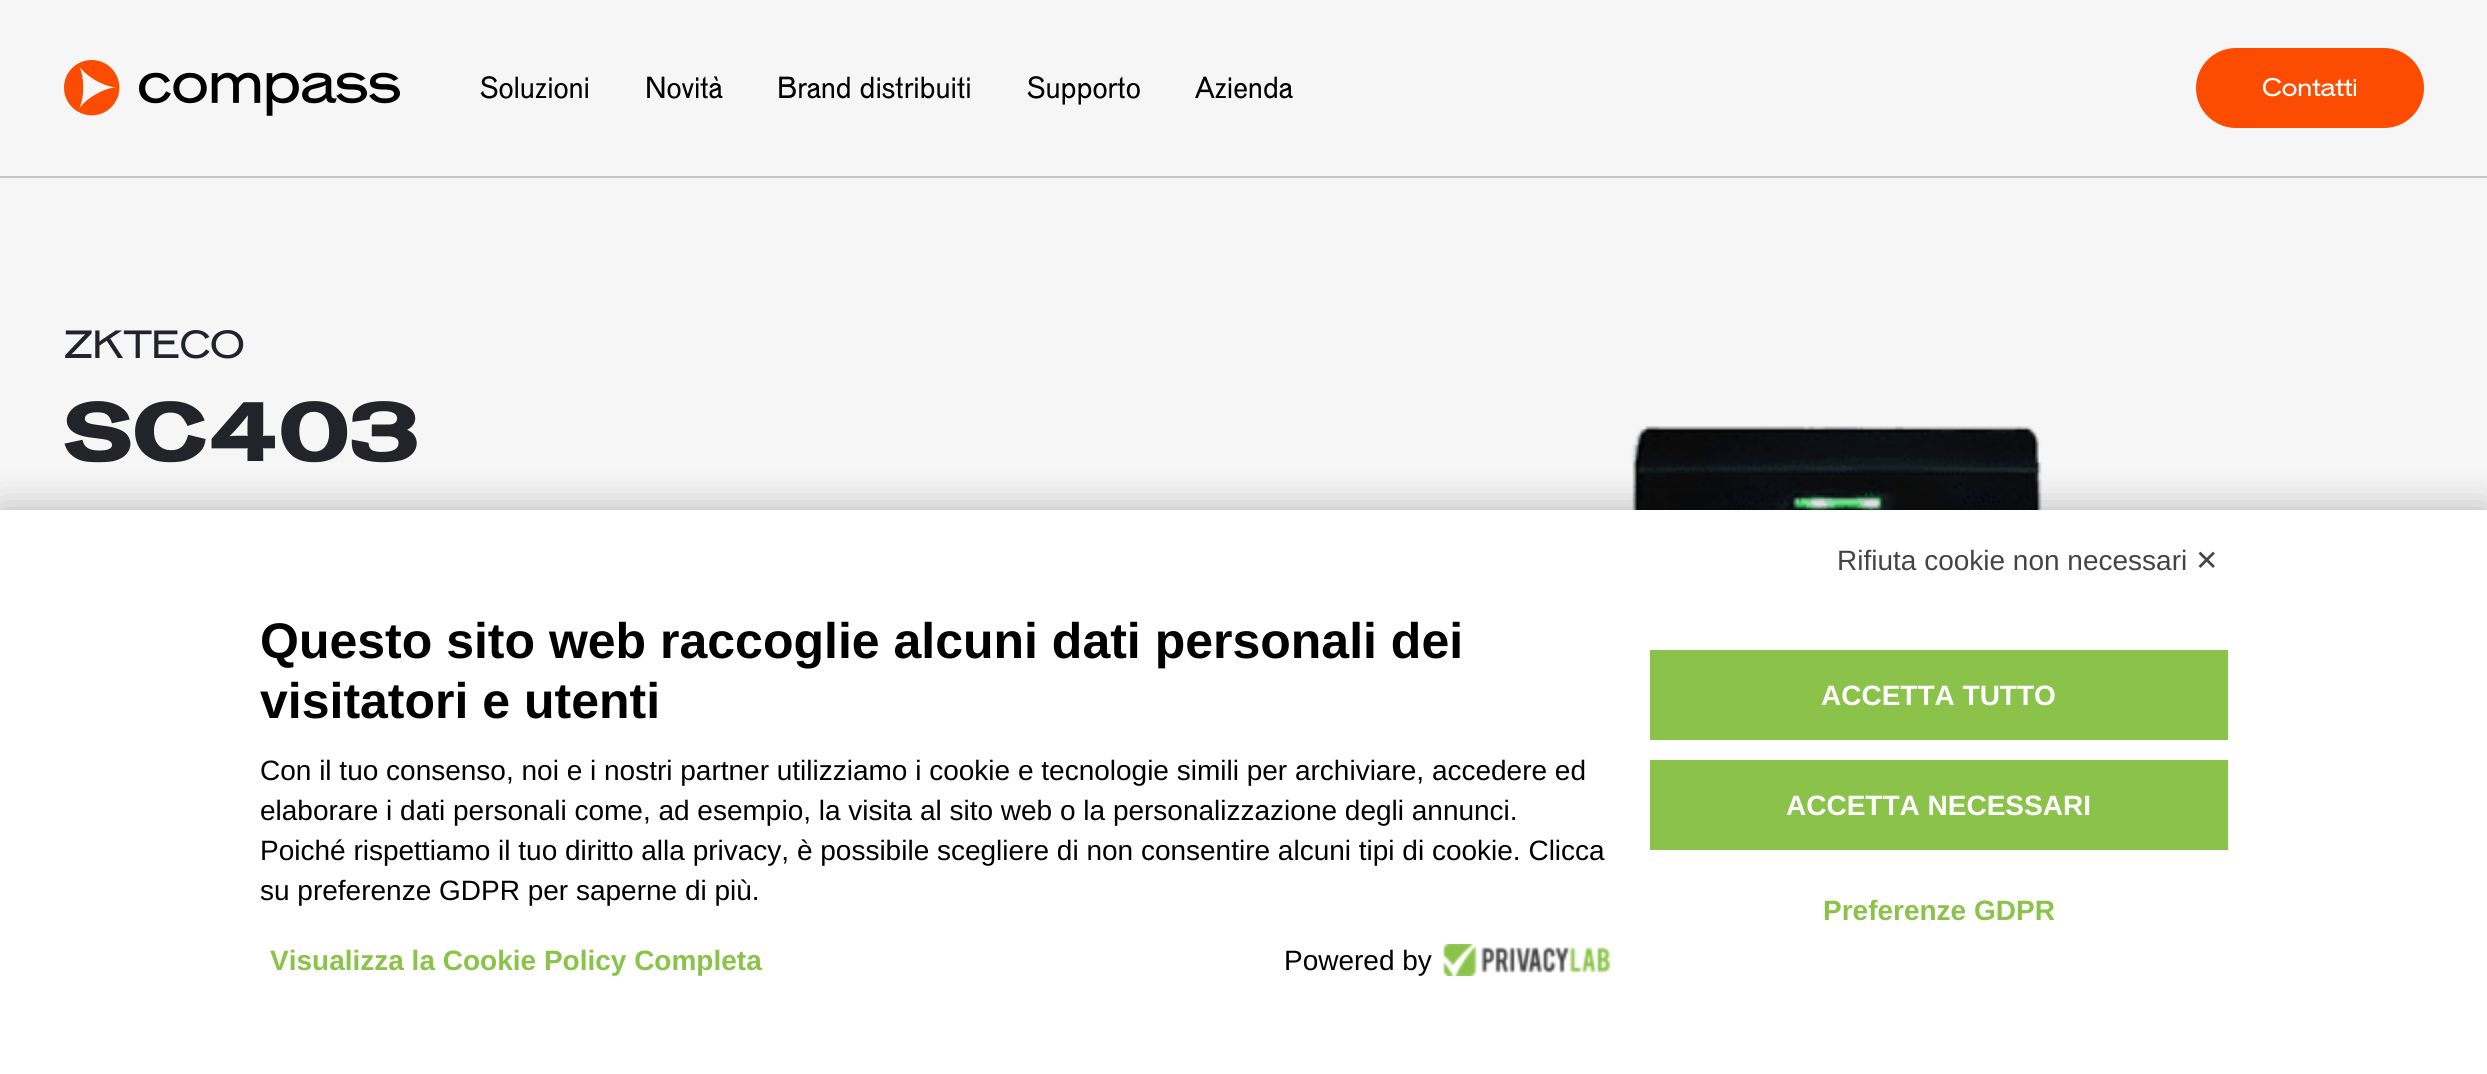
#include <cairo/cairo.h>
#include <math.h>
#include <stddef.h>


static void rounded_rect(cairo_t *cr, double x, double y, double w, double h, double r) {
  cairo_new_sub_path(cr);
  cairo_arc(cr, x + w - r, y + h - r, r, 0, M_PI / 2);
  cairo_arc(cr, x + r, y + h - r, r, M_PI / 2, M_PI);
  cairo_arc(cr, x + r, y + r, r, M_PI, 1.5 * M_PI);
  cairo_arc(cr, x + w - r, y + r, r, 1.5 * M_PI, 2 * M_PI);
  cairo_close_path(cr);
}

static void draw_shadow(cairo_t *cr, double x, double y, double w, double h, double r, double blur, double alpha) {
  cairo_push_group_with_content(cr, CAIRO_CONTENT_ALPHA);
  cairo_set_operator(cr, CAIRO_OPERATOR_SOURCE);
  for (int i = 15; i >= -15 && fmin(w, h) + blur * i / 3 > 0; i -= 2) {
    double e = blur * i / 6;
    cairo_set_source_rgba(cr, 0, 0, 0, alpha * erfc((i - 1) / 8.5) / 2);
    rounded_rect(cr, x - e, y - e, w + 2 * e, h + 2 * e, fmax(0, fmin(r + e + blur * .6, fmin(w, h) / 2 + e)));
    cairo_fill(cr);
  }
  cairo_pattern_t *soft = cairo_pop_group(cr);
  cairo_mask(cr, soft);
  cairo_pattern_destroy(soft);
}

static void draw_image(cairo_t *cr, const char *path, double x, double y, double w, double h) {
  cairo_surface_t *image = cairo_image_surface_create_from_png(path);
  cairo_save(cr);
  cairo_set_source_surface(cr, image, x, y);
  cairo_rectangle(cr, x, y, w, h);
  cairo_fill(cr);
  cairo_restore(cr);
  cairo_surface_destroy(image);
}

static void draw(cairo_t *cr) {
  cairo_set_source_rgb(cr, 246 / 255.0, 246 / 255.0, 247 / 255.0);
  cairo_paint(cr);
  cairo_set_source_rgb(cr, 196 / 255.0, 196 / 255.0, 196 / 255.0);
  cairo_rectangle(cr, 0, 176, 2487, 2);
  cairo_fill(cr);
  draw_image(cr, "images/1.png", 64, 60, 336, 56);
  cairo_set_source_rgb(cr, 252 / 255.0, 76 / 255.0, 2 / 255.0);
  rounded_rect(cr, 2197, 49, 226, 78, 39);
  cairo_fill_preserve(cr);
  cairo_stroke(cr);
  draw_image(cr, "images/2.png", 1630, 426, 412, 84);
  cairo_set_source_rgb(cr, 0, 0, 0);
  draw_shadow(cr, 0, 510, 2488, 564, 0, 20, 0.27);
  cairo_set_source_rgb(cr, 1, 1, 1);
  cairo_rectangle(cr, 0, 510, 2487, 564);
  cairo_fill(cr);
  draw_image(cr, "images/3.png", 1443, 944, 167, 32);
  cairo_set_source_rgb(cr, 139 / 255.0, 195 / 255.0, 74 / 255.0);
  cairo_rectangle(cr, 1650, 650, 578, 90);
  cairo_fill(cr);
  cairo_rectangle(cr, 1650, 760, 578, 90);
  cairo_fill(cr);
  cairo_select_font_face(cr, "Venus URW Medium", CAIRO_FONT_SLANT_NORMAL, CAIRO_FONT_WEIGHT_NORMAL);
  cairo_set_font_size(cr, 32);
  cairo_set_source_rgb(cr, 0, 0, 0);
  cairo_move_to(cr, 480, 98);
  cairo_show_text(cr, "Soluzioni");
  cairo_move_to(cr, 645, 98);
  cairo_show_text(cr, "Novità");
  cairo_move_to(cr, 777, 98);
  cairo_show_text(cr, "Brand distribuiti");
  cairo_move_to(cr, 1027, 98);
  cairo_show_text(cr, "Supporto");
  cairo_move_to(cr, 1195, 98);
  cairo_show_text(cr, "Azienda");
  cairo_select_font_face(cr, "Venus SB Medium", CAIRO_FONT_SLANT_NORMAL, CAIRO_FONT_WEIGHT_NORMAL);
  cairo_set_font_size(cr, 24);
  cairo_set_source_rgb(cr, 1, 1, 1);
  cairo_move_to(cr, 2262, 96);
  cairo_show_text(cr, "Contatti");
  cairo_set_font_size(cr, 37);
  cairo_set_source_rgb(cr, 33 / 255.0, 37 / 255.0, 41 / 255.0);
  cairo_move_to(cr, 64, 358);
  cairo_show_text(cr, "ZKTECO");
  cairo_select_font_face(cr, "Venus SB", CAIRO_FONT_SLANT_NORMAL, CAIRO_FONT_WEIGHT_BOLD);
  cairo_set_font_size(cr, 79);
  cairo_move_to(cr, 64, 461);
  cairo_show_text(cr, "SC403");
  cairo_select_font_face(cr, "Liberation Sans", CAIRO_FONT_SLANT_NORMAL, CAIRO_FONT_WEIGHT_NORMAL);
  cairo_set_font_size(cr, 28);
  cairo_set_source_rgb(cr, 68 / 255.0, 68 / 255.0, 68 / 255.0);
  cairo_move_to(cr, 1837, 570);
  cairo_show_text(cr, "Rifiuta cookie non necessari");
  cairo_select_font_face(cr, "DejaVu Sans", CAIRO_FONT_SLANT_NORMAL, CAIRO_FONT_WEIGHT_NORMAL);
  cairo_move_to(cr, 2195, 570);
  cairo_show_text(cr, "✕");
  cairo_select_font_face(cr, "Liberation Sans", CAIRO_FONT_SLANT_NORMAL, CAIRO_FONT_WEIGHT_BOLD);
  cairo_set_font_size(cr, 50);
  cairo_set_source_rgb(cr, 0, 0, 0);
  cairo_move_to(cr, 260, 658);
  cairo_show_text(cr, "Questo sito web raccoglie alcuni dati personali dei");
  cairo_move_to(cr, 260, 718);
  cairo_show_text(cr, "visitatori e utenti");
  cairo_select_font_face(cr, "Liberation Sans", CAIRO_FONT_SLANT_NORMAL, CAIRO_FONT_WEIGHT_NORMAL);
  cairo_set_font_size(cr, 28);
  cairo_move_to(cr, 260, 780);
  cairo_show_text(cr, "Con il tuo consenso, noi e i nostri partner utilizziamo i cookie e tecnologie simili per archiviare, accedere ed");
  cairo_move_to(cr, 260, 820);
  cairo_show_text(cr, "elaborare i dati personali come, ad esempio, la visita al sito web o la personalizzazione degli annunci.");
  cairo_move_to(cr, 260, 860);
  cairo_show_text(cr, "Poiché rispettiamo il tuo diritto alla privacy, è possibile scegliere di non consentire alcuni tipi di cookie. Clicca");
  cairo_move_to(cr, 260, 900);
  cairo_show_text(cr, "su preferenze GDPR per saperne di più.");
  cairo_select_font_face(cr, "Liberation Sans", CAIRO_FONT_SLANT_NORMAL, CAIRO_FONT_WEIGHT_BOLD);
  cairo_set_source_rgb(cr, 139 / 255.0, 195 / 255.0, 74 / 255.0);
  cairo_move_to(cr, 270, 970);
  cairo_show_text(cr, "Visualizza la Cookie Policy Completa");
  cairo_select_font_face(cr, "Liberation Sans", CAIRO_FONT_SLANT_NORMAL, CAIRO_FONT_WEIGHT_NORMAL);
  cairo_set_source_rgb(cr, 0, 0, 0);
  cairo_move_to(cr, 1284, 970);
  cairo_show_text(cr, "Powered by");
  cairo_select_font_face(cr, "Liberation Sans", CAIRO_FONT_SLANT_NORMAL, CAIRO_FONT_WEIGHT_BOLD);
  cairo_set_source_rgb(cr, 1, 1, 1);
  cairo_move_to(cr, 1821, 705);
  cairo_show_text(cr, "ACCETTA TUTTO");
  cairo_move_to(cr, 1786, 815);
  cairo_show_text(cr, "ACCETTA NECESSARI");
  cairo_set_source_rgb(cr, 139 / 255.0, 195 / 255.0, 74 / 255.0);
  cairo_move_to(cr, 1823, 920);
  cairo_show_text(cr, "Preferenze GDPR");
}

int main(void) {
  cairo_surface_t *surface = cairo_image_surface_create(CAIRO_FORMAT_RGB24, 2487, 1074);
  cairo_t *cr = cairo_create(surface);
  cairo_font_options_t *options = cairo_font_options_create();
  cairo_font_options_set_hint_metrics(options, CAIRO_HINT_METRICS_OFF);
  cairo_font_options_set_hint_style(options, CAIRO_HINT_STYLE_NONE);
  cairo_set_font_options(cr, options);
  cairo_set_miter_limit(cr, 4);
  draw(cr);
  cairo_surface_write_to_png(surface, "out.png");
  cairo_font_options_destroy(options);
  cairo_destroy(cr);
  cairo_surface_destroy(surface);
  return 0;
}
